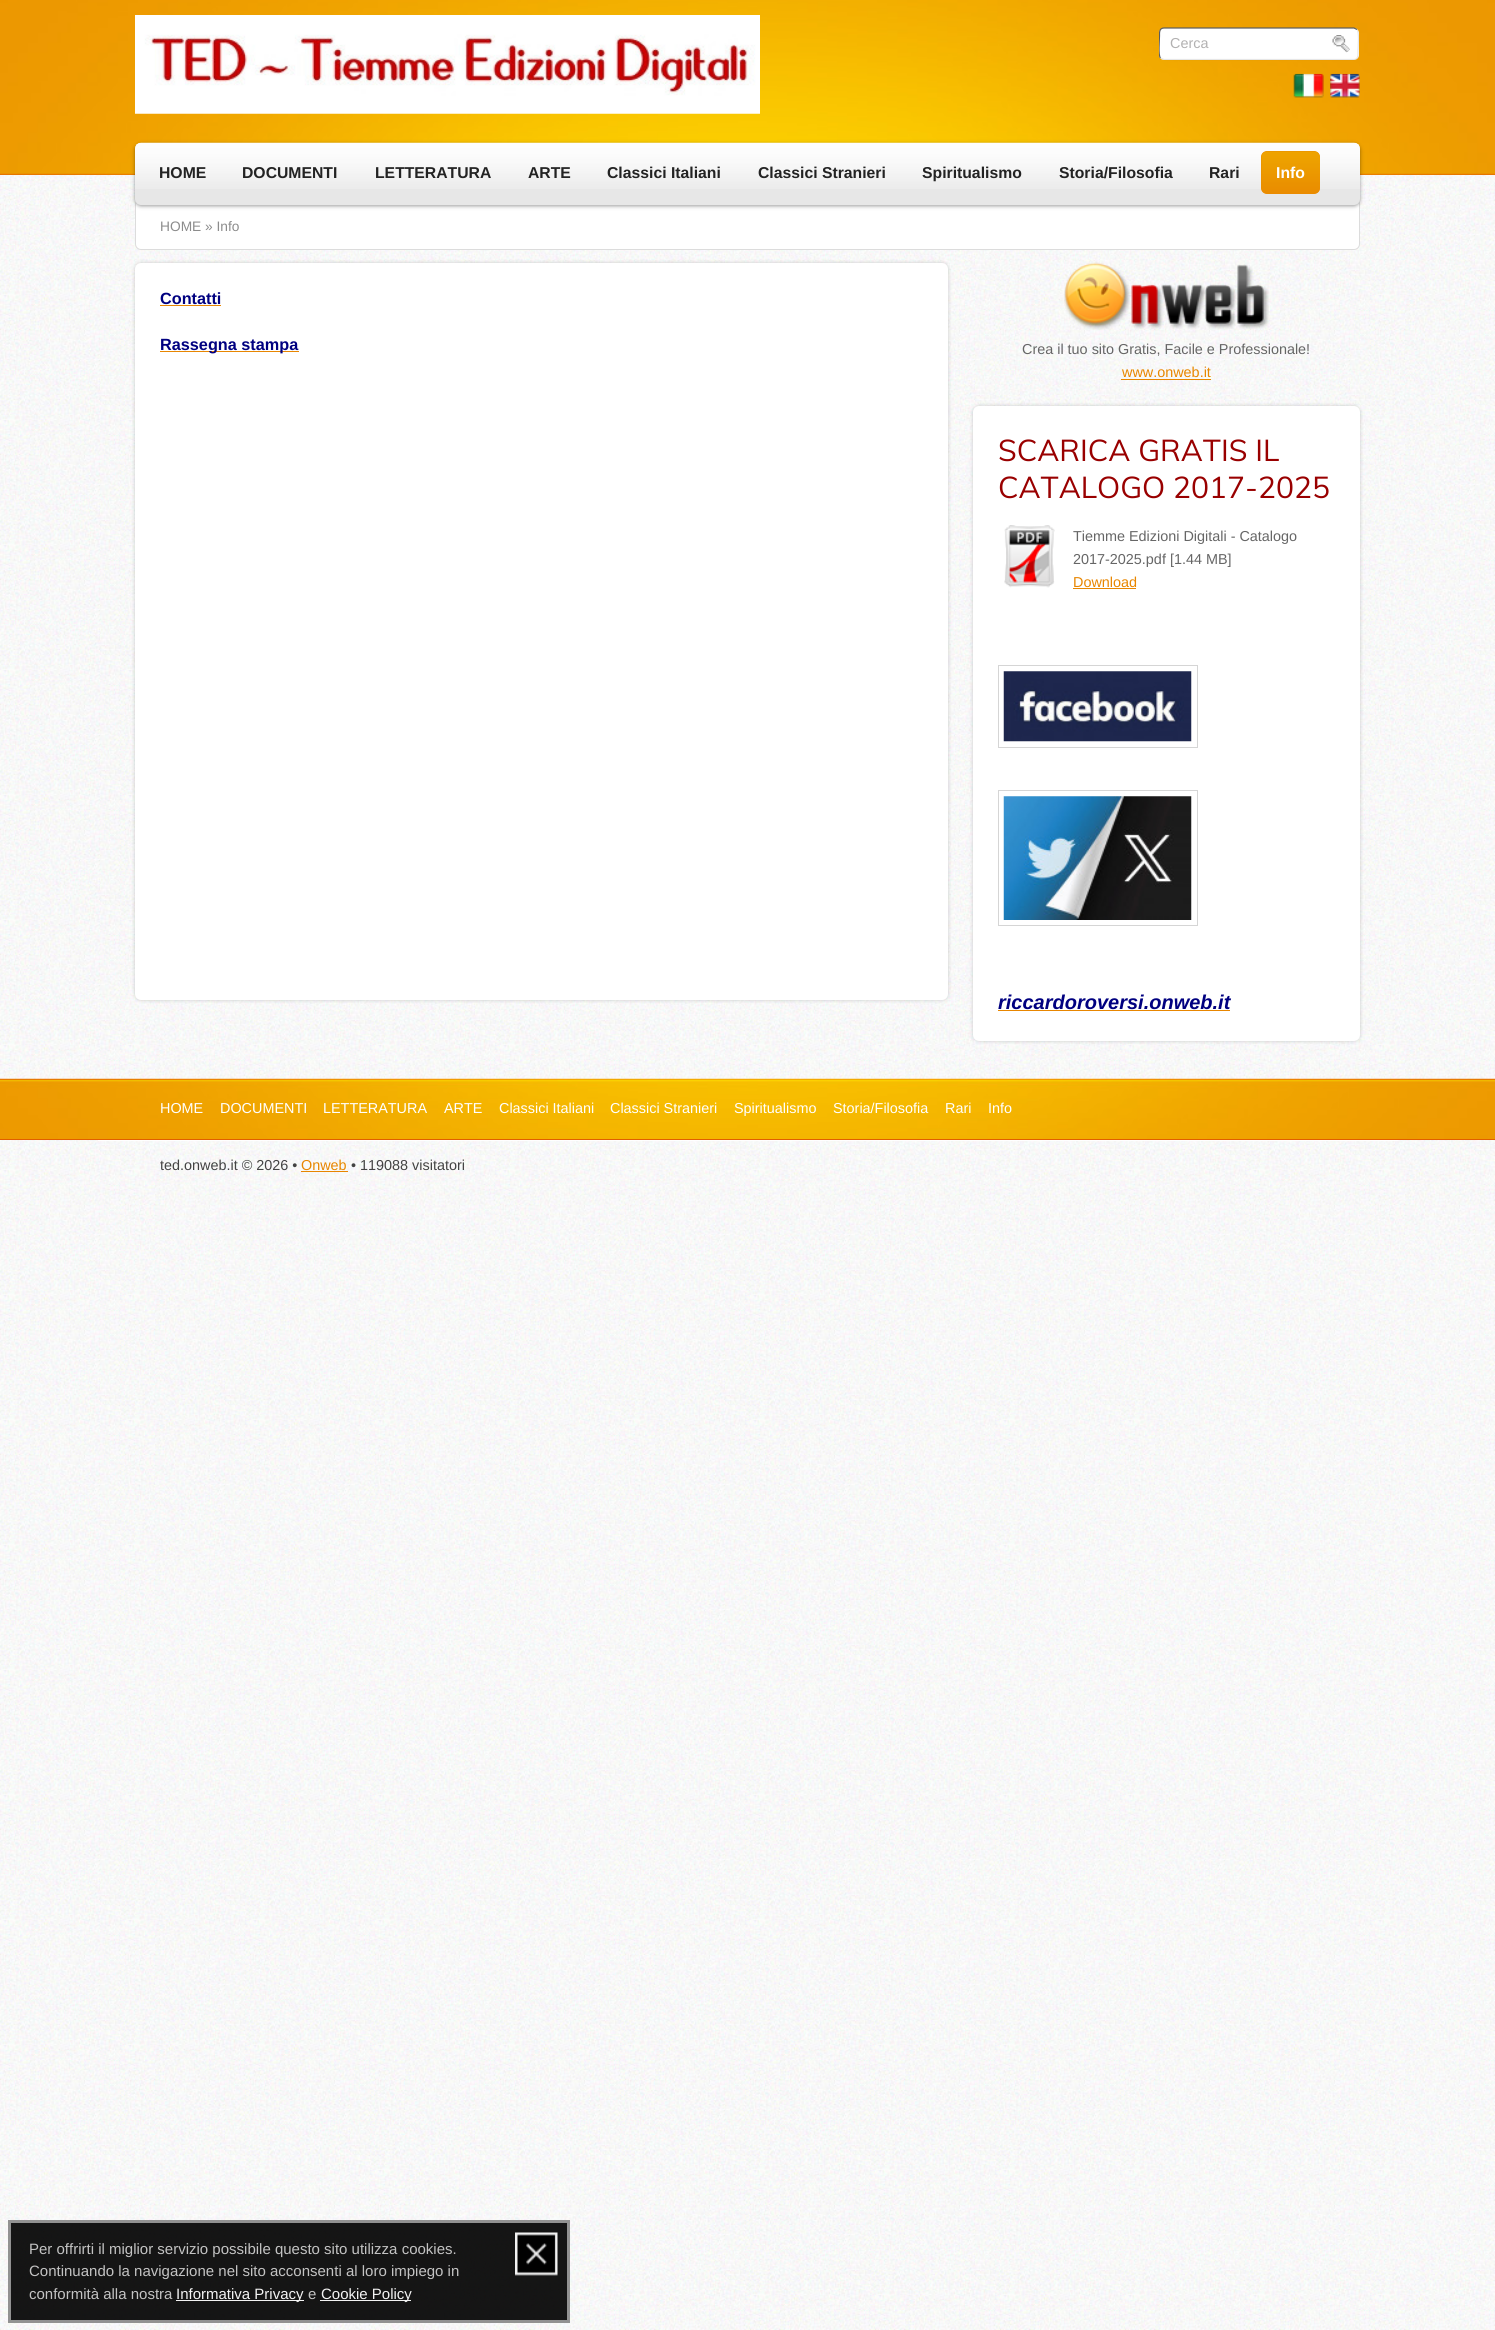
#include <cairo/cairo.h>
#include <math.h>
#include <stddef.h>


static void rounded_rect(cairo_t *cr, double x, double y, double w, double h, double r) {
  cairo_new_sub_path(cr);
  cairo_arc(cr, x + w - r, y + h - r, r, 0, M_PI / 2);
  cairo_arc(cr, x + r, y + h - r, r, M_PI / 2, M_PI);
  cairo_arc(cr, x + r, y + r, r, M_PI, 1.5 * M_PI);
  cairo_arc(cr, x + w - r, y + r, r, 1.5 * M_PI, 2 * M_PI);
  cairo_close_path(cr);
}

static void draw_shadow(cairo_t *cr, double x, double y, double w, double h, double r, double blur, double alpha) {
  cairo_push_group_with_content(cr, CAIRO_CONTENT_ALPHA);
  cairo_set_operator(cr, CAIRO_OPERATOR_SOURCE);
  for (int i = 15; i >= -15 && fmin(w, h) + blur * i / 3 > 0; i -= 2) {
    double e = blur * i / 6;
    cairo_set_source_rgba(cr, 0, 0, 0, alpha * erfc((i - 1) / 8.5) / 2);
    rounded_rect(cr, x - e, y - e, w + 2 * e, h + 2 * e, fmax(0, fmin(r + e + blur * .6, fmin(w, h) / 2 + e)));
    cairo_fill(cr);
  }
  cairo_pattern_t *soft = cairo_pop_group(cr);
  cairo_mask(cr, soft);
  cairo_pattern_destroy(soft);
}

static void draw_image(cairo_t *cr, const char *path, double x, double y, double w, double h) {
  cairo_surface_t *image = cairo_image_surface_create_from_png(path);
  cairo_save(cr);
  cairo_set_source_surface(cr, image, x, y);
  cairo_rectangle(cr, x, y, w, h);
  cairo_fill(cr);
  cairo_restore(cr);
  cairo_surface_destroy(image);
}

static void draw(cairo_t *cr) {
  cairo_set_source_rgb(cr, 1, 1, 1);
  cairo_paint(cr);
  draw_image(cr, "images/1.png", 0, 175, 1495, 2155);
  draw_image(cr, "images/2.png", 0, 0, 1495, 175);
  draw_image(cr, "images/3.png", 135, 15, 625, 99);
  cairo_set_source_rgb(cr, 1, 1, 1);
  rounded_rect(cr, 1159, 28, 200, 32, 5);
  cairo_fill(cr);
  cairo_new_path(cr);
  cairo_move_to(cr, 1357, 29.5);
  cairo_curve_to(cr, 1359.5, 32, 1358, 47, 1358, 51);
  cairo_curve_to(cr, 1358, 54.5, 1358.5, 59.5, 1354, 59.5);
  cairo_line_to(cr, 1164, 59.5);
  cairo_line_to(cr, 1160.5, 58);
  cairo_set_source_rgba(cr, 0, 0, 0, 0.1);
  cairo_set_line_width(cr, 1.2);
  cairo_stroke(cr);
  cairo_save(cr);
  cairo_rectangle(cr, 1159, 15, 201, 46);
  cairo_clip(cr);
  cairo_new_path(cr);
  cairo_move_to(cr, 1160.5, 58);
  cairo_curve_to(cr, 1158, 55.5, 1159.5, 40.5, 1159.5, 36);
  cairo_curve_to(cr, 1159.5, 33, 1159, 28, 1164, 28);
  cairo_line_to(cr, 1354, 28);
  cairo_line_to(cr, 1357, 29.5);
  cairo_set_source_rgb(cr, 92 / 255.0, 92 / 255.0, 92 / 255.0);
  cairo_stroke(cr);
  cairo_restore(cr);
  draw_image(cr, "images/4.png", 1332, 35, 18, 18);
  draw_image(cr, "images/5.png", 1293, 73, 31, 25);
  draw_image(cr, "images/6.png", 1330, 73, 30, 25);
  cairo_set_source_rgb(cr, 1, 1, 1);
  rounded_rect(cr, 135.5, 199.5, 1224, 50, 5.5);
  cairo_fill_preserve(cr);
  cairo_set_source_rgb(cr, 220 / 255.0, 220 / 255.0, 220 / 255.0);
  cairo_set_line_width(cr, 1);
  cairo_stroke(cr);
  cairo_set_source_rgb(cr, 0, 0, 0);
  draw_shadow(cr, 135, 144, 1225, 62, 6, 2, 0.4);
  cairo_set_source_rgb(cr, 231 / 255.0, 231 / 255.0, 231 / 255.0);
  rounded_rect(cr, 135, 143, 1225, 62, 6);
  cairo_fill(cr);
  draw_image(cr, "images/7.png", 135, 142, 1225, 47);
  cairo_set_source_rgb(cr, 234 / 255.0, 140 / 255.0, 0);
  rounded_rect(cr, 1261, 151, 59, 43, 6);
  cairo_fill(cr);
  draw_image(cr, "images/8.png", 1261, 151, 59, 43);
  cairo_set_source_rgb(cr, 0, 0, 0);
  draw_shadow(cr, 135, 263, 813, 737, 6, 2, 0.2);
  cairo_set_source_rgb(cr, 1, 1, 1);
  rounded_rect(cr, 135, 263, 813, 737, 6);
  cairo_fill(cr);
  cairo_set_source_rgb(cr, 232 / 255.0, 134 / 255.0, 0);
  cairo_rectangle(cr, 160, 305, 61, 1);
  cairo_fill(cr);
  cairo_rectangle(cr, 160, 351, 139, 1);
  cairo_fill(cr);
  draw_image(cr, "images/9.png", 1064, 262, 205, 68);
  cairo_rectangle(cr, 1121, 379, 90, 1);
  cairo_fill(cr);
  cairo_set_source_rgb(cr, 0, 0, 0);
  draw_shadow(cr, 973, 406, 387, 635, 6, 2, 0.2);
  cairo_set_source_rgb(cr, 1, 1, 1);
  rounded_rect(cr, 973, 406, 387, 635, 6);
  cairo_fill(cr);
  draw_image(cr, "images/10.png", 1004, 525, 51, 63);
  cairo_set_source_rgb(cr, 232 / 255.0, 134 / 255.0, 0);
  cairo_rectangle(cr, 1073, 588, 63, 1);
  cairo_fill(cr);
  cairo_rectangle(cr, 998.5, 665.5, 199, 82);
  cairo_set_source_rgb(cr, 213 / 255.0, 213 / 255.0, 213 / 255.0);
  cairo_stroke(cr);
  draw_image(cr, "images/11.png", 1003, 671, 189, 71);
  cairo_rectangle(cr, 998.5, 790.5, 199, 135);
  cairo_stroke(cr);
  draw_image(cr, "images/12.png", 1003, 796, 189, 124);
  cairo_set_source_rgb(cr, 232 / 255.0, 134 / 255.0, 0);
  cairo_rectangle(cr, 998, 1010, 232, 1);
  cairo_fill(cr);
  draw_image(cr, "images/13.png", 0, 1078, 1495, 61);
  cairo_set_source_rgb(cr, 225 / 255.0, 94 / 255.0, 0);
  cairo_rectangle(cr, 0, 1139, 1495, 1);
  cairo_fill(cr);
  cairo_set_source_rgb(cr, 1, 1, 1);
  cairo_rectangle(cr, 98, 1140, 1300, 1);
  cairo_fill(cr);
  cairo_set_source_rgb(cr, 232 / 255.0, 134 / 255.0, 0);
  cairo_rectangle(cr, 301, 1171, 47, 1);
  cairo_fill(cr);
  cairo_set_source_rgba(cr, 10 / 255.0, 10 / 255.0, 10 / 255.0, 0.95);
  cairo_rectangle(cr, 9.5, 2221.5, 559, 100);
  cairo_fill_preserve(cr);
  cairo_set_source_rgb(cr, 146 / 255.0, 146 / 255.0, 146 / 255.0);
  cairo_set_line_width(cr, 3);
  cairo_stroke(cr);
  draw_image(cr, "images/14.png", 515, 2232, 43, 44);
  cairo_set_source_rgb(cr, 243 / 255.0, 243 / 255.0, 243 / 255.0);
  cairo_rectangle(cr, 176, 2300, 128, 1);
  cairo_fill(cr);
  cairo_rectangle(cr, 320, 2300, 91, 1);
  cairo_fill(cr);
  cairo_select_font_face(cr, "Liberation Sans", CAIRO_FONT_SLANT_NORMAL, CAIRO_FONT_WEIGHT_NORMAL);
  cairo_set_font_size(cr, 14.4);
  cairo_set_source_rgb(cr, 178 / 255.0, 177 / 255.0, 177 / 255.0);
  cairo_move_to(cr, 1170, 48);
  cairo_show_text(cr, "Cerca");
  cairo_select_font_face(cr, "Liberation Sans", CAIRO_FONT_SLANT_NORMAL, CAIRO_FONT_WEIGHT_BOLD);
  cairo_set_font_size(cr, 15.75);
  cairo_set_source_rgb(cr, 35 / 255.0, 35 / 255.0, 35 / 255.0);
  cairo_move_to(cr, 159, 178);
  cairo_show_text(cr, "HOME");
  cairo_move_to(cr, 242, 178);
  cairo_show_text(cr, "DOCUMENTI");
  cairo_move_to(cr, 375, 178);
  cairo_show_text(cr, "LETTERATURA");
  cairo_move_to(cr, 528, 178);
  cairo_show_text(cr, "ARTE");
  cairo_move_to(cr, 607, 178);
  cairo_show_text(cr, "Classici Italiani");
  cairo_move_to(cr, 758, 178);
  cairo_show_text(cr, "Classici Stranieri");
  cairo_move_to(cr, 922, 178);
  cairo_show_text(cr, "Spiritualismo");
  cairo_move_to(cr, 1059, 178);
  cairo_show_text(cr, "Storia/Filosofia");
  cairo_move_to(cr, 1209, 178);
  cairo_show_text(cr, "Rari");
  cairo_set_source_rgb(cr, 1, 1, 1);
  cairo_move_to(cr, 1276, 178);
  cairo_show_text(cr, "Info");
  cairo_select_font_face(cr, "Liberation Sans", CAIRO_FONT_SLANT_NORMAL, CAIRO_FONT_WEIGHT_NORMAL);
  cairo_set_font_size(cr, 13.75);
  cairo_set_source_rgb(cr, 140 / 255.0, 140 / 255.0, 140 / 255.0);
  cairo_move_to(cr, 160, 231);
  cairo_show_text(cr, "HOME » Info");
  cairo_select_font_face(cr, "Liberation Sans", CAIRO_FONT_SLANT_NORMAL, CAIRO_FONT_WEIGHT_BOLD);
  cairo_set_font_size(cr, 16.25);
  cairo_set_source_rgb(cr, 0, 0, 128 / 255.0);
  cairo_move_to(cr, 160, 304);
  cairo_show_text(cr, "Contatti");
  cairo_move_to(cr, 160, 350);
  cairo_show_text(cr, "Rassegna stampa");
  cairo_select_font_face(cr, "Liberation Sans", CAIRO_FONT_SLANT_NORMAL, CAIRO_FONT_WEIGHT_NORMAL);
  cairo_set_font_size(cr, 14.4);
  cairo_set_source_rgb(cr, 102 / 255.0, 102 / 255.0, 102 / 255.0);
  cairo_move_to(cr, 1022, 354);
  cairo_show_text(cr, "Crea il tuo sito Gratis, Facile e Professionale!");
  cairo_set_source_rgb(cr, 232 / 255.0, 134 / 255.0, 0);
  cairo_move_to(cr, 1122, 377);
  cairo_show_text(cr, "www.onweb.it");
  cairo_select_font_face(cr, "Muli", CAIRO_FONT_SLANT_NORMAL, CAIRO_FONT_WEIGHT_NORMAL);
  cairo_set_font_size(cr, 30);
  cairo_set_source_rgb(cr, 153 / 255.0, 0, 0);
  cairo_move_to(cr, 998, 461);
  cairo_show_text(cr, "SCARICA GRATIS IL");
  cairo_move_to(cr, 998, 498);
  cairo_show_text(cr, "CATALOGO 2017-2025");
  cairo_select_font_face(cr, "Liberation Sans", CAIRO_FONT_SLANT_NORMAL, CAIRO_FONT_WEIGHT_NORMAL);
  cairo_set_font_size(cr, 14.4);
  cairo_set_source_rgb(cr, 102 / 255.0, 102 / 255.0, 102 / 255.0);
  cairo_move_to(cr, 1073, 541);
  cairo_show_text(cr, "Tiemme Edizioni Digitali - Catalogo");
  cairo_move_to(cr, 1073, 564);
  cairo_show_text(cr, "2017-2025.pdf [1.44 MB]");
  cairo_set_source_rgb(cr, 232 / 255.0, 134 / 255.0, 0);
  cairo_move_to(cr, 1073, 587);
  cairo_show_text(cr, "Download");
  cairo_select_font_face(cr, "Liberation Sans", CAIRO_FONT_SLANT_ITALIC, CAIRO_FONT_WEIGHT_BOLD);
  cairo_set_font_size(cr, 20);
  cairo_set_source_rgb(cr, 0, 0, 128 / 255.0);
  cairo_move_to(cr, 998, 1009);
  cairo_show_text(cr, "riccardoroversi.onweb.it");
  cairo_select_font_face(cr, "Liberation Sans", CAIRO_FONT_SLANT_NORMAL, CAIRO_FONT_WEIGHT_NORMAL);
  cairo_set_font_size(cr, 14.4);
  cairo_set_source_rgb(cr, 1, 1, 1);
  cairo_move_to(cr, 160, 1113);
  cairo_show_text(cr, "HOME");
  cairo_move_to(cr, 220, 1113);
  cairo_show_text(cr, "DOCUMENTI");
  cairo_move_to(cr, 323, 1113);
  cairo_show_text(cr, "LETTERATURA");
  cairo_move_to(cr, 444, 1113);
  cairo_show_text(cr, "ARTE");
  cairo_move_to(cr, 499, 1113);
  cairo_show_text(cr, "Classici Italiani");
  cairo_move_to(cr, 610, 1113);
  cairo_show_text(cr, "Classici Stranieri");
  cairo_move_to(cr, 734, 1113);
  cairo_show_text(cr, "Spiritualismo");
  cairo_move_to(cr, 833, 1113);
  cairo_show_text(cr, "Storia/Filosofia");
  cairo_move_to(cr, 945, 1113);
  cairo_show_text(cr, "Rari");
  cairo_move_to(cr, 988, 1113);
  cairo_show_text(cr, "Info");
  cairo_set_source_rgb(cr, 67 / 255.0, 67 / 255.0, 67 / 255.0);
  cairo_move_to(cr, 160, 1170);
  cairo_show_text(cr, "ted.onweb.it © 2026 •");
  cairo_set_source_rgb(cr, 232 / 255.0, 134 / 255.0, 0);
  cairo_move_to(cr, 301, 1170);
  cairo_show_text(cr, "Onweb");
  cairo_set_source_rgb(cr, 67 / 255.0, 67 / 255.0, 67 / 255.0);
  cairo_move_to(cr, 351, 1170);
  cairo_show_text(cr, "• 119088 visitatori");
  cairo_set_font_size(cr, 15);
  cairo_set_source_rgb(cr, 195 / 255.0, 195 / 255.0, 195 / 255.0);
  cairo_move_to(cr, 29, 2254);
  cairo_show_text(cr, "Per offrirti il miglior servizio possibile questo sito utilizza cookies.");
  cairo_move_to(cr, 29, 2276);
  cairo_show_text(cr, "Continuando la navigazione nel sito acconsenti al loro impiego in");
  cairo_move_to(cr, 29, 2299);
  cairo_show_text(cr, "conformità alla nostra");
  cairo_set_source_rgb(cr, 243 / 255.0, 243 / 255.0, 243 / 255.0);
  cairo_move_to(cr, 176, 2299);
  cairo_show_text(cr, "Informativa Privacy");
  cairo_set_source_rgb(cr, 195 / 255.0, 195 / 255.0, 195 / 255.0);
  cairo_move_to(cr, 308, 2299);
  cairo_show_text(cr, "e");
  cairo_set_source_rgb(cr, 243 / 255.0, 243 / 255.0, 243 / 255.0);
  cairo_move_to(cr, 321, 2299);
  cairo_show_text(cr, "Cookie Policy");
}

int main(void) {
  cairo_surface_t *surface = cairo_image_surface_create(CAIRO_FORMAT_RGB24, 1495, 2330);
  cairo_t *cr = cairo_create(surface);
  cairo_font_options_t *options = cairo_font_options_create();
  cairo_font_options_set_hint_metrics(options, CAIRO_HINT_METRICS_OFF);
  cairo_font_options_set_hint_style(options, CAIRO_HINT_STYLE_NONE);
  cairo_set_font_options(cr, options);
  cairo_set_miter_limit(cr, 4);
  draw(cr);
  cairo_surface_write_to_png(surface, "out.png");
  cairo_font_options_destroy(options);
  cairo_destroy(cr);
  cairo_surface_destroy(surface);
  return 0;
}
